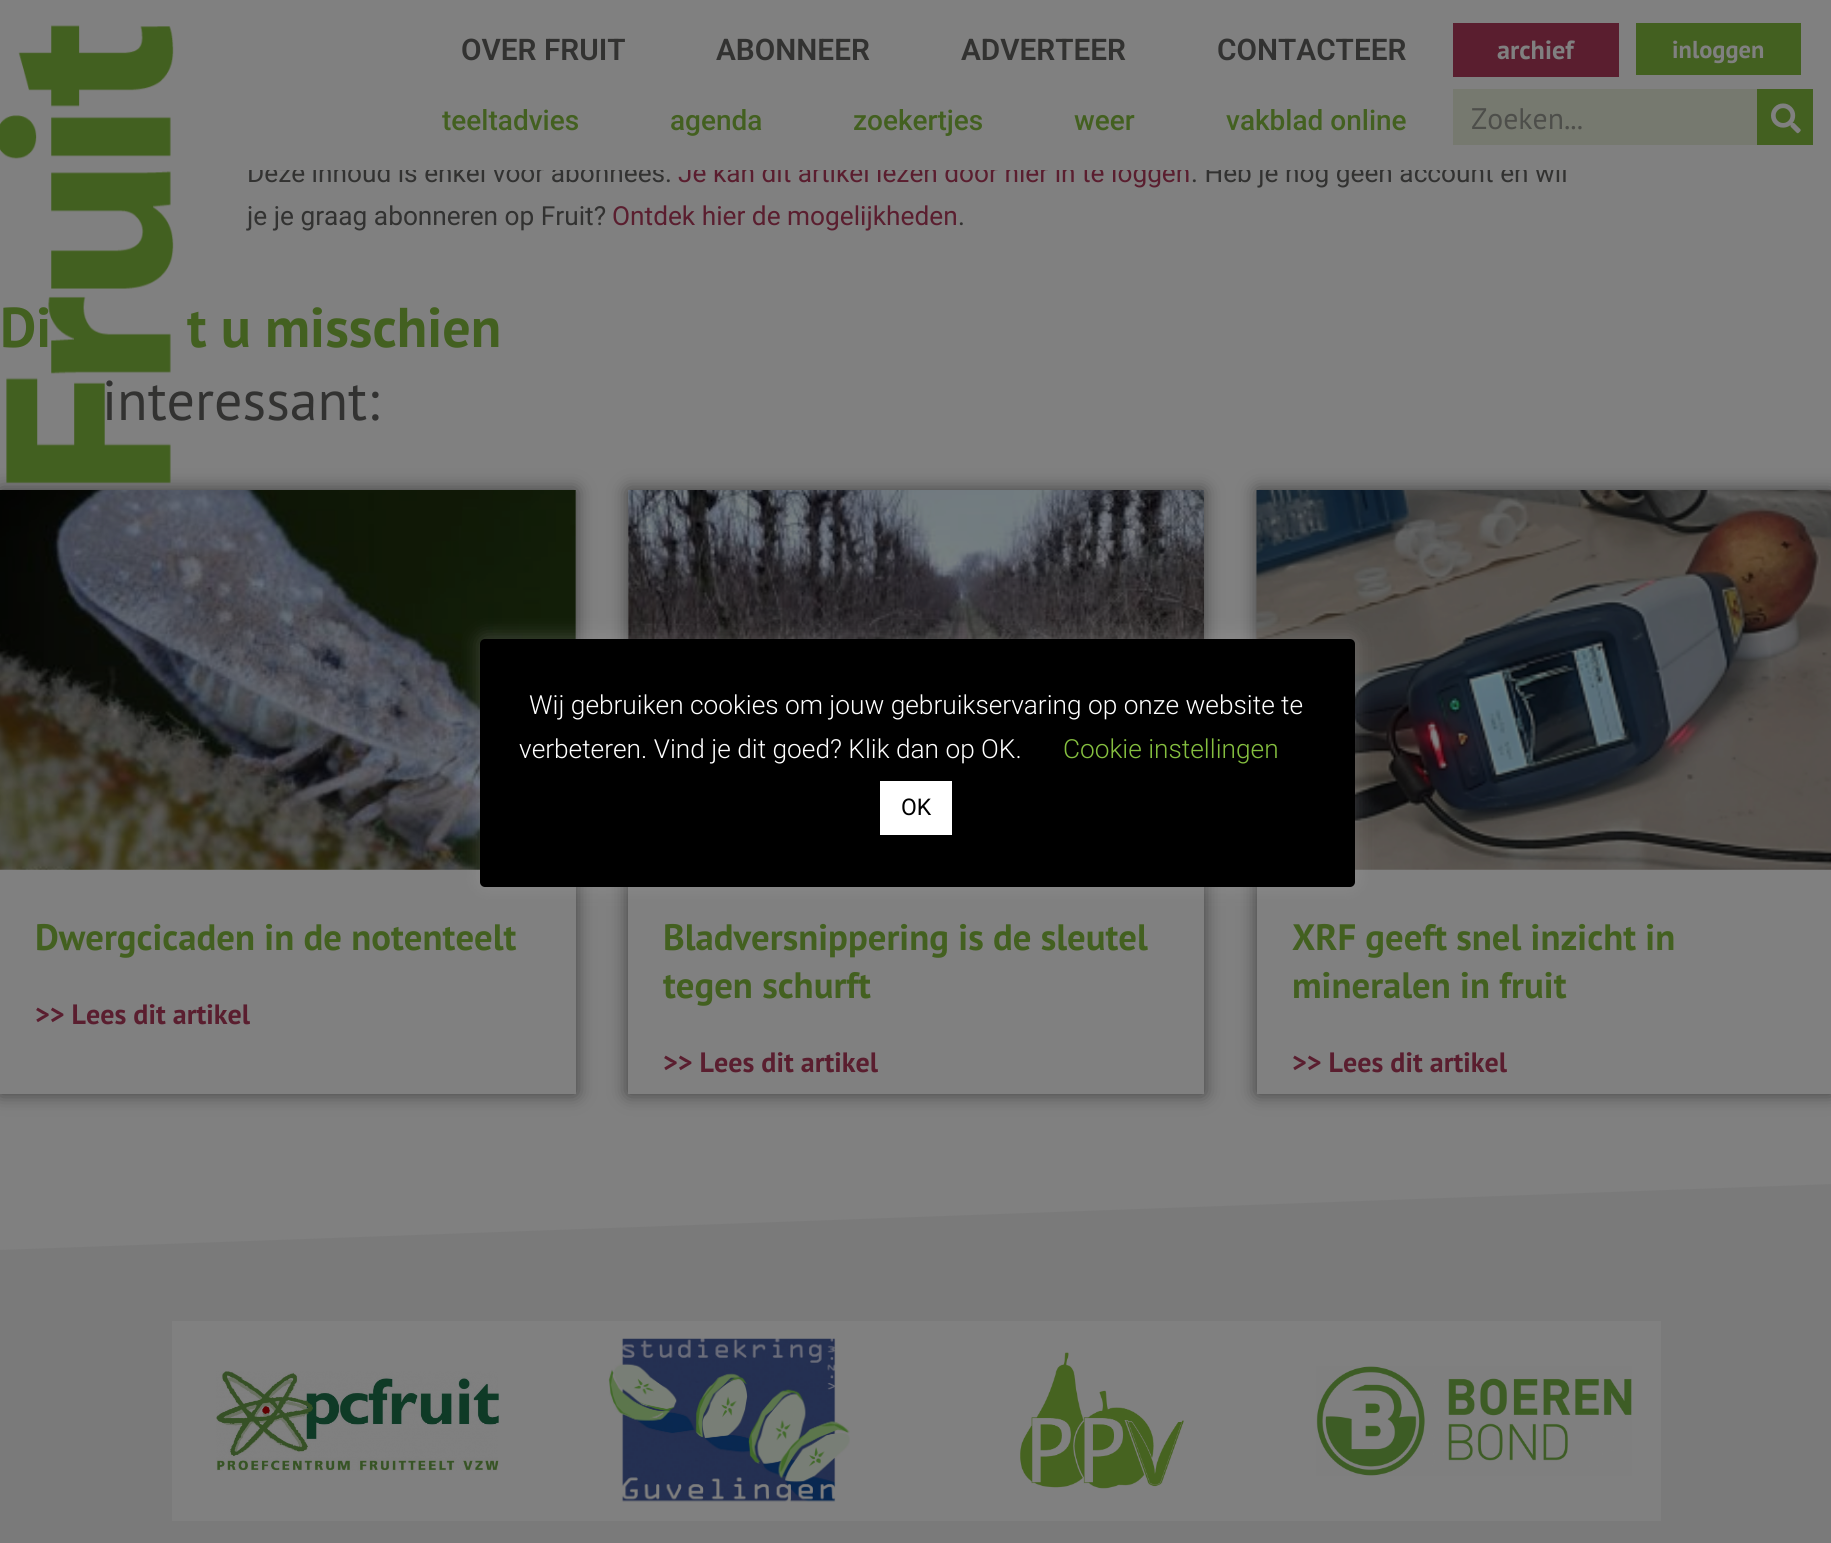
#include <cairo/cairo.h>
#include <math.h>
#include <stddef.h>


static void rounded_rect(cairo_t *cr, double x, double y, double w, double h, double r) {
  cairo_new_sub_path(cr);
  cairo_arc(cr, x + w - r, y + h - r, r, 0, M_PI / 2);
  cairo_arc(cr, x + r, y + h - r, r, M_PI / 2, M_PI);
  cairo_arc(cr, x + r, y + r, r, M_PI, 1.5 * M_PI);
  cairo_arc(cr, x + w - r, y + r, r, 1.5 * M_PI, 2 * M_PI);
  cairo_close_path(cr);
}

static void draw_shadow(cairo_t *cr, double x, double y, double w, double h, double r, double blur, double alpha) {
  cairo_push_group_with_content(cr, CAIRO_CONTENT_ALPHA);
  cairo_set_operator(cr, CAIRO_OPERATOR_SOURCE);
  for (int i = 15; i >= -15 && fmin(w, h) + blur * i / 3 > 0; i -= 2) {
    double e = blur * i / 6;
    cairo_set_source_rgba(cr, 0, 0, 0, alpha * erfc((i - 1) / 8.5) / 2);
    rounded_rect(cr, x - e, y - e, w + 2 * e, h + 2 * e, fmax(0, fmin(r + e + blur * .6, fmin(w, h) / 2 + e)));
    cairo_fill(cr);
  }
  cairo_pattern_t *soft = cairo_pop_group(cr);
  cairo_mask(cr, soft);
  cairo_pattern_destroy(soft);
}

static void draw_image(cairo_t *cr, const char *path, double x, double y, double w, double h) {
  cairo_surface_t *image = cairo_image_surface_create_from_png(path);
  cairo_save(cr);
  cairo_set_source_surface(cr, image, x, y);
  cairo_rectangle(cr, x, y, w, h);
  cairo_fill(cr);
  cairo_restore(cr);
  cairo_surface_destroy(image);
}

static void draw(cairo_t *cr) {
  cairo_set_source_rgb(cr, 128 / 255.0, 128 / 255.0, 128 / 255.0);
  cairo_paint(cr);
  cairo_set_source_rgb(cr, 90 / 255.0, 30 / 255.0, 47 / 255.0);
  cairo_rectangle(cr, 1453, 23, 166, 54);
  cairo_fill(cr);
  cairo_set_source_rgb(cr, 67 / 255.0, 96 / 255.0, 32 / 255.0);
  cairo_rectangle(cr, 1636, 23, 165, 52);
  cairo_fill(cr);
  cairo_set_source_rgb(cr, 118 / 255.0, 121 / 255.0, 111 / 255.0);
  cairo_rectangle(cr, 1453, 89, 304, 56);
  cairo_fill(cr);
  cairo_set_source_rgb(cr, 67 / 255.0, 96 / 255.0, 32 / 255.0);
  cairo_rectangle(cr, 1757, 89, 56, 56);
  cairo_fill(cr);
  draw_image(cr, "images/2.png", 1771, 103, 30, 31);
  cairo_save(cr);
  cairo_set_fill_rule(cr, CAIRO_FILL_RULE_EVEN_ODD);
  cairo_new_path(cr);
  cairo_move_to(cr, 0, 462);
  cairo_line_to(cr, 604, 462);
  cairo_line_to(cr, 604, 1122);
  cairo_line_to(cr, 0, 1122);
  cairo_close_path(cr);
  cairo_move_to(cr, 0, 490);
  cairo_line_to(cr, 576, 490);
  cairo_line_to(cr, 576, 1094);
  cairo_line_to(cr, 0, 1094);
  cairo_close_path(cr);
  cairo_clip(cr);
  cairo_set_source_rgb(cr, 0, 0, 0);
  draw_shadow(cr, 0, 490, 576, 604, 0, 9, 0.5);
  cairo_restore(cr);
  draw_image(cr, "images/3.png", 0, 490, 576, 380);
  cairo_save(cr);
  cairo_set_fill_rule(cr, CAIRO_FILL_RULE_EVEN_ODD);
  cairo_new_path(cr);
  cairo_move_to(cr, 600, 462);
  cairo_line_to(cr, 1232, 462);
  cairo_line_to(cr, 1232, 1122);
  cairo_line_to(cr, 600, 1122);
  cairo_close_path(cr);
  cairo_move_to(cr, 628, 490);
  cairo_line_to(cr, 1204, 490);
  cairo_line_to(cr, 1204, 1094);
  cairo_line_to(cr, 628, 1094);
  cairo_close_path(cr);
  cairo_clip(cr);
  cairo_set_source_rgb(cr, 0, 0, 0);
  draw_shadow(cr, 628, 490, 576, 604, 0, 9, 0.5);
  cairo_restore(cr);
  draw_image(cr, "images/4.png", 628, 490, 576, 149);
  cairo_save(cr);
  cairo_set_fill_rule(cr, CAIRO_FILL_RULE_EVEN_ODD);
  cairo_new_path(cr);
  cairo_move_to(cr, 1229, 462);
  cairo_line_to(cr, 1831, 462);
  cairo_line_to(cr, 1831, 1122);
  cairo_line_to(cr, 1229, 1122);
  cairo_close_path(cr);
  cairo_move_to(cr, 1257, 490);
  cairo_line_to(cr, 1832, 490);
  cairo_line_to(cr, 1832, 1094);
  cairo_line_to(cr, 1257, 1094);
  cairo_close_path(cr);
  cairo_clip(cr);
  cairo_set_source_rgb(cr, 0, 0, 0);
  draw_shadow(cr, 1257, 490, 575, 604, 0, 9, 0.5);
  cairo_restore(cr);
  draw_image(cr, "images/5.png", 1256, 490, 575, 380);
  cairo_set_source_rgb(cr, 122 / 255.0, 122 / 255.0, 122 / 255.0);
  cairo_rectangle(cr, 0, 1184, 1831, 359);
  cairo_fill(cr);
  cairo_set_source_rgb(cr, 128 / 255.0, 128 / 255.0, 128 / 255.0);
  cairo_new_path(cr);
  cairo_move_to(cr, 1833, 1184);
  cairo_line_to(cr, 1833, 1180);
  cairo_line_to(cr, -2, 1180);
  cairo_line_to(cr, -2, 1250);
  cairo_close_path(cr);
  cairo_fill(cr);
  cairo_rectangle(cr, 172, 1321, 1489, 200);
  cairo_fill(cr);
  draw_image(cr, "images/6.png", 216, 1370, 283, 101);
  draw_image(cr, "images/7.png", 608, 1338, 242, 164);
  draw_image(cr, "images/8.png", 1020, 1352, 164, 137);
  draw_image(cr, "images/9.png", 1316, 1366, 316, 110);
  cairo_set_source_rgb(cr, 172 / 255.0, 171 / 255.0, 171 / 255.0);
  draw_shadow(cr, 480, 637, 875, 249, 5, 9, 0.3);
  cairo_set_source_rgb(cr, 0, 0, 0);
  rounded_rect(cr, 480, 639, 875, 248, 5);
  cairo_fill(cr);
  cairo_set_source_rgb(cr, 1, 1, 1);
  cairo_rectangle(cr, 880, 781, 72, 54);
  cairo_fill(cr);
  cairo_select_font_face(cr, "Roboto SemiBold", CAIRO_FONT_SLANT_NORMAL, CAIRO_FONT_WEIGHT_NORMAL);
  cairo_set_font_size(cr, 29.75);
  cairo_set_source_rgb(cr, 50 / 255.0, 50 / 255.0, 49 / 255.0);
  cairo_move_to(cr, 461, 60);
  cairo_show_text(cr, "OVER FRUIT");
  cairo_move_to(cr, 716, 60);
  cairo_show_text(cr, "ABONNEER");
  cairo_move_to(cr, 961, 60);
  cairo_show_text(cr, "ADVERTEER");
  cairo_move_to(cr, 1217, 60);
  cairo_show_text(cr, "CONTACTEER");
  cairo_select_font_face(cr, "PT Sans", CAIRO_FONT_SLANT_NORMAL, CAIRO_FONT_WEIGHT_BOLD);
  cairo_set_font_size(cr, 26.25);
  cairo_set_source_rgb(cr, 128 / 255.0, 128 / 255.0, 128 / 255.0);
  cairo_move_to(cr, 1497, 59);
  cairo_show_text(cr, "archief");
  cairo_set_font_size(cr, 24.5);
  cairo_move_to(cr, 1672, 58);
  cairo_show_text(cr, "inloggen");
  cairo_select_font_face(cr, "Roboto Medium", CAIRO_FONT_SLANT_NORMAL, CAIRO_FONT_WEIGHT_NORMAL);
  cairo_set_font_size(cr, 28);
  cairo_set_source_rgb(cr, 67 / 255.0, 96 / 255.0, 32 / 255.0);
  cairo_move_to(cr, 442, 130);
  cairo_show_text(cr, "teeltadvies");
  cairo_move_to(cr, 670, 130);
  cairo_show_text(cr, "agenda");
  cairo_move_to(cr, 853, 130);
  cairo_show_text(cr, "zoekertjes");
  cairo_move_to(cr, 1074, 130);
  cairo_show_text(cr, "weer");
  cairo_move_to(cr, 1226, 130);
  cairo_show_text(cr, "vakblad online");
  cairo_select_font_face(cr, "PT Sans", CAIRO_FONT_SLANT_NORMAL, CAIRO_FONT_WEIGHT_NORMAL);
  cairo_set_font_size(cr, 29.75);
  cairo_set_source_rgb(cr, 77 / 255.0, 78 / 255.0, 74 / 255.0);
  cairo_move_to(cr, 1471, 129);
  cairo_show_text(cr, "Zoeken...");
  cairo_select_font_face(cr, "Roboto", CAIRO_FONT_SLANT_NORMAL, CAIRO_FONT_WEIGHT_NORMAL);
  cairo_set_font_size(cr, 26.25);
  cairo_set_source_rgb(cr, 50 / 255.0, 50 / 255.0, 49 / 255.0);
  cairo_move_to(cr, 247, 182);
  cairo_show_text(cr, "Deze inhoud is enkel voor abonnees.");
  cairo_set_source_rgb(cr, 90 / 255.0, 30 / 255.0, 47 / 255.0);
  cairo_move_to(cr, 678, 182);
  cairo_show_text(cr, "Je kan dit artikel lezen door hier in te loggen");
  cairo_set_source_rgb(cr, 50 / 255.0, 50 / 255.0, 49 / 255.0);
  cairo_move_to(cr, 1191, 182);
  cairo_show_text(cr, ". Heb je nog geen account en wil");
  cairo_set_source_rgb(cr, 128 / 255.0, 128 / 255.0, 128 / 255.0);
  cairo_rectangle(cr, 248, 162, 1318, 8);
  cairo_fill(cr);
  cairo_set_source_rgb(cr, 50 / 255.0, 50 / 255.0, 49 / 255.0);
  cairo_move_to(cr, 247, 225);
  cairo_show_text(cr, "je je graag abonneren op Fruit?");
  cairo_set_source_rgb(cr, 90 / 255.0, 30 / 255.0, 47 / 255.0);
  cairo_move_to(cr, 612, 225);
  cairo_show_text(cr, "Ontdek hier de mogelijkheden");
  cairo_set_source_rgb(cr, 50 / 255.0, 50 / 255.0, 49 / 255.0);
  cairo_move_to(cr, 958, 225);
  cairo_show_text(cr, ".");
  cairo_select_font_face(cr, "PT Sans", CAIRO_FONT_SLANT_NORMAL, CAIRO_FONT_WEIGHT_BOLD);
  cairo_set_font_size(cr, 56);
  cairo_set_source_rgb(cr, 67 / 255.0, 96 / 255.0, 32 / 255.0);
  cairo_move_to(cr, 0, 347);
  cairo_show_text(cr, "Di");
  cairo_move_to(cr, 187, 347);
  cairo_show_text(cr, "t u misschien");
  cairo_select_font_face(cr, "PT Sans", CAIRO_FONT_SLANT_NORMAL, CAIRO_FONT_WEIGHT_NORMAL);
  cairo_set_source_rgb(cr, 50 / 255.0, 50 / 255.0, 49 / 255.0);
  cairo_move_to(cr, 102, 420);
  cairo_show_text(cr, "interessant:");
  draw_image(cr, "images/1.png", 0, 25, 174, 459);
  cairo_select_font_face(cr, "PT Sans", CAIRO_FONT_SLANT_NORMAL, CAIRO_FONT_WEIGHT_BOLD);
  cairo_set_font_size(cr, 36.75);
  cairo_set_source_rgb(cr, 67 / 255.0, 96 / 255.0, 32 / 255.0);
  cairo_move_to(cr, 35, 950);
  cairo_show_text(cr, "Dwergcicaden in de notenteelt");
  cairo_set_font_size(cr, 28);
  cairo_set_source_rgb(cr, 90 / 255.0, 30 / 255.0, 47 / 255.0);
  cairo_move_to(cr, 35, 1024);
  cairo_show_text(cr, ">> Lees dit artikel");
  cairo_set_font_size(cr, 36.75);
  cairo_set_source_rgb(cr, 67 / 255.0, 96 / 255.0, 32 / 255.0);
  cairo_move_to(cr, 663, 950);
  cairo_show_text(cr, "Bladversnippering is de sleutel");
  cairo_move_to(cr, 663, 998);
  cairo_show_text(cr, "tegen schurft");
  cairo_set_font_size(cr, 28);
  cairo_set_source_rgb(cr, 90 / 255.0, 30 / 255.0, 47 / 255.0);
  cairo_move_to(cr, 663, 1072);
  cairo_show_text(cr, ">> Lees dit artikel");
  cairo_set_font_size(cr, 36.75);
  cairo_set_source_rgb(cr, 67 / 255.0, 96 / 255.0, 32 / 255.0);
  cairo_move_to(cr, 1292, 950);
  cairo_show_text(cr, "XRF geeft snel inzicht in");
  cairo_move_to(cr, 1292, 998);
  cairo_show_text(cr, "mineralen in fruit");
  cairo_set_font_size(cr, 28);
  cairo_set_source_rgb(cr, 90 / 255.0, 30 / 255.0, 47 / 255.0);
  cairo_move_to(cr, 1292, 1072);
  cairo_show_text(cr, ">> Lees dit artikel");
  cairo_select_font_face(cr, "Roboto Light", CAIRO_FONT_SLANT_NORMAL, CAIRO_FONT_WEIGHT_NORMAL);
  cairo_set_font_size(cr, 26.25);
  cairo_set_source_rgb(cr, 1, 1, 1);
  cairo_move_to(cr, 529, 714);
  cairo_show_text(cr, "Wij gebruiken cookies om jouw gebruikservaring op onze website te");
  cairo_move_to(cr, 519, 758);
  cairo_show_text(cr, "verbeteren. Vind je dit goed? Klik dan op OK.");
  cairo_set_source_rgb(cr, 133 / 255.0, 191 / 255.0, 63 / 255.0);
  cairo_move_to(cr, 1063, 758);
  cairo_show_text(cr, "Cookie instellingen");
  cairo_select_font_face(cr, "Roboto", CAIRO_FONT_SLANT_NORMAL, CAIRO_FONT_WEIGHT_NORMAL);
  cairo_set_font_size(cr, 23);
  cairo_set_source_rgb(cr, 0, 0, 0);
  cairo_move_to(cr, 901, 815);
  cairo_show_text(cr, "OK");
}

int main(void) {
  cairo_surface_t *surface = cairo_image_surface_create(CAIRO_FORMAT_RGB24, 1831, 1543);
  cairo_t *cr = cairo_create(surface);
  cairo_font_options_t *options = cairo_font_options_create();
  cairo_font_options_set_hint_metrics(options, CAIRO_HINT_METRICS_OFF);
  cairo_font_options_set_hint_style(options, CAIRO_HINT_STYLE_NONE);
  cairo_set_font_options(cr, options);
  cairo_set_miter_limit(cr, 4);
  draw(cr);
  cairo_surface_write_to_png(surface, "out.png");
  cairo_font_options_destroy(options);
  cairo_destroy(cr);
  cairo_surface_destroy(surface);
  return 0;
}
